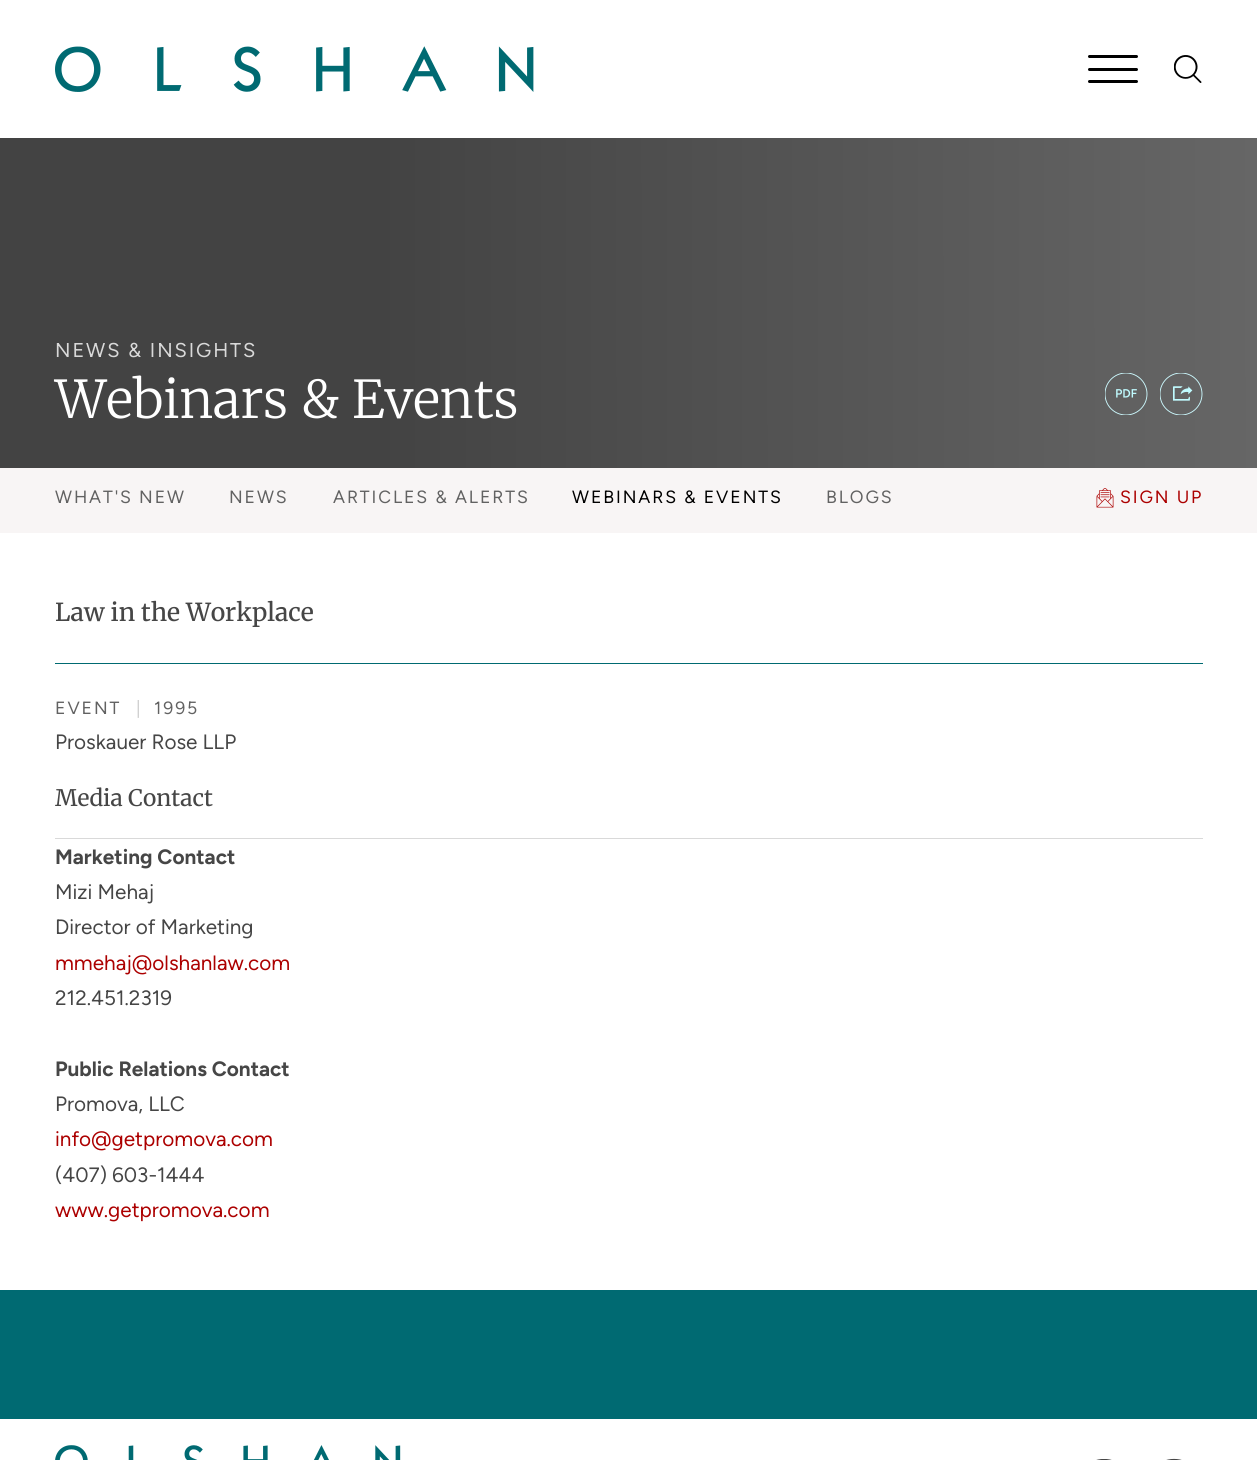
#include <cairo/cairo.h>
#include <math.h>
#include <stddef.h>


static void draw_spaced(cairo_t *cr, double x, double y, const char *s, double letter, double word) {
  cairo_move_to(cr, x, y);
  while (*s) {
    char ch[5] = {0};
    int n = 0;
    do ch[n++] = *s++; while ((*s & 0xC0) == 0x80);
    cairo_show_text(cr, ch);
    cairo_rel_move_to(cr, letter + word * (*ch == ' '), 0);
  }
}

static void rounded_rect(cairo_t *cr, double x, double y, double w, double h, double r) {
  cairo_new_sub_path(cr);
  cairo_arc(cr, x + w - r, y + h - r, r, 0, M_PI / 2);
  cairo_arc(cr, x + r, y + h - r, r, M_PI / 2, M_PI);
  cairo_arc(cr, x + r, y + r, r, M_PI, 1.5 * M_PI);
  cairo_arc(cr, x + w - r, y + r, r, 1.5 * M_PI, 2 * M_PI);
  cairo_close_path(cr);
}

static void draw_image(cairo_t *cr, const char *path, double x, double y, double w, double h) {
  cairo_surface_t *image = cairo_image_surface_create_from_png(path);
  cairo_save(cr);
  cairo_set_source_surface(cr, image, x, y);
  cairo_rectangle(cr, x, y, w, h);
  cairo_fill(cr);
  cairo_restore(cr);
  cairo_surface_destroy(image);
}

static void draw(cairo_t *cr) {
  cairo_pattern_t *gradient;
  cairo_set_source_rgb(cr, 1, 1, 1);
  cairo_paint(cr);
  draw_image(cr, "images/1.png", 55, 46, 479, 46);
  cairo_set_source_rgb(cr, 0, 0, 0);
  rounded_rect(cr, 1088, 55, 50, 3, 1.5);
  cairo_fill(cr);
  rounded_rect(cr, 1088, 68, 50, 3, 1.5);
  cairo_fill(cr);
  rounded_rect(cr, 1088, 80, 50, 3, 1.5);
  cairo_fill(cr);
  draw_image(cr, "images/2.png", 1174, 55, 28, 28);
  gradient = cairo_pattern_create_linear(0, 303, 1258, 302);
  cairo_pattern_add_color_stop_rgba(gradient, 0.3, 67 / 255.0, 67 / 255.0, 67 / 255.0, 1);
  cairo_pattern_add_color_stop_rgba(gradient, 1, 102 / 255.0, 102 / 255.0, 102 / 255.0, 1);
  cairo_set_source(cr, gradient);
  cairo_pattern_destroy(gradient);
  cairo_rectangle(cr, 0, 138, 1257, 330);
  cairo_fill(cr);
  draw_image(cr, "images/3.png", 1105, 373, 43, 42);
  draw_image(cr, "images/4.png", 1160, 373, 43, 42);
  cairo_set_source_rgb(cr, 248 / 255.0, 245 / 255.0, 245 / 255.0);
  cairo_rectangle(cr, 0, 468, 1257, 65);
  cairo_fill(cr);
  draw_image(cr, "images/5.png", 1096, 488, 18, 20);
  cairo_set_source_rgb(cr, 0, 106 / 255.0, 113 / 255.0);
  cairo_rectangle(cr, 55, 663, 1148, 1);
  cairo_fill(cr);
  cairo_set_source_rgb(cr, 217 / 255.0, 217 / 255.0, 217 / 255.0);
  cairo_rectangle(cr, 55, 838, 1148, 1);
  cairo_fill(cr);
  cairo_set_source_rgb(cr, 0, 106 / 255.0, 114 / 255.0);
  cairo_rectangle(cr, 0, 1290, 1257, 129);
  cairo_fill(cr);
  draw_image(cr, "images/6.png", 55, 1445, 346, 15);
  draw_image(cr, "images/7.png", 1096, 1459, 16, 1);
  cairo_arc(cr, 1174, 1487.5, 28, 0, 2 * M_PI);
  cairo_set_source_rgb(cr, 70 / 255.0, 70 / 255.0, 70 / 255.0);
  cairo_set_line_width(cr, 1.2);
  cairo_stroke(cr);
  cairo_select_font_face(cr, "Figtree", CAIRO_FONT_SLANT_NORMAL, CAIRO_FONT_WEIGHT_NORMAL);
  cairo_set_font_size(cr, 20);
  cairo_set_source_rgb(cr, 217 / 255.0, 217 / 255.0, 217 / 255.0);
  draw_spaced(cr, 55, 357, "NEWS & INSIGHTS", 1.9, 0);
  cairo_select_font_face(cr, "Merriweather Light", CAIRO_FONT_SLANT_NORMAL, CAIRO_FONT_WEIGHT_NORMAL);
  cairo_set_font_size(cr, 52);
  cairo_set_source_rgb(cr, 1, 1, 1);
  cairo_move_to(cr, 55, 418);
  cairo_show_text(cr, "Webinars & Events");
  cairo_select_font_face(cr, "Figtree", CAIRO_FONT_SLANT_NORMAL, CAIRO_FONT_WEIGHT_NORMAL);
  cairo_set_font_size(cr, 17.7);
  cairo_set_source_rgb(cr, 98 / 255.0, 98 / 255.0, 98 / 255.0);
  draw_spaced(cr, 55, 503, "WHAT'S NEW", 1.9, 0);
  draw_spaced(cr, 229, 503, "NEWS", 1.9, 0);
  draw_spaced(cr, 333, 503, "ARTICLES & ALERTS", 1.9, 0);
  cairo_set_source_rgb(cr, 0, 0, 0);
  draw_spaced(cr, 572, 503, "WEBINARS & EVENTS", 1.9, 0);
  cairo_set_source_rgb(cr, 98 / 255.0, 98 / 255.0, 98 / 255.0);
  draw_spaced(cr, 826, 503, "BLOGS", 1.9, 0);
  cairo_set_source_rgb(cr, 172 / 255.0, 0, 0);
  draw_spaced(cr, 1120, 503, "SIGN UP", 1.9, 0);
  cairo_select_font_face(cr, "Merriweather Medium", CAIRO_FONT_SLANT_NORMAL, CAIRO_FONT_WEIGHT_NORMAL);
  cairo_set_font_size(cr, 24.75);
  cairo_set_source_rgb(cr, 70 / 255.0, 70 / 255.0, 70 / 255.0);
  cairo_move_to(cr, 55, 621);
  cairo_show_text(cr, "Law in the Workplace");
  cairo_select_font_face(cr, "Figtree", CAIRO_FONT_SLANT_NORMAL, CAIRO_FONT_WEIGHT_NORMAL);
  cairo_set_font_size(cr, 17.7);
  cairo_set_source_rgb(cr, 98 / 255.0, 98 / 255.0, 98 / 255.0);
  draw_spaced(cr, 55, 714, "EVENT", 1.9, 0);
  cairo_set_source_rgb(cr, 204 / 255.0, 204 / 255.0, 204 / 255.0);
  draw_spaced(cr, 136, 714, "|", 1.9, 0);
  cairo_set_source_rgb(cr, 98 / 255.0, 98 / 255.0, 98 / 255.0);
  draw_spaced(cr, 154, 714, "1995", 1.9, 0);
  cairo_set_font_size(cr, 20.75);
  cairo_set_source_rgb(cr, 70 / 255.0, 70 / 255.0, 70 / 255.0);
  cairo_move_to(cr, 55, 749);
  cairo_show_text(cr, "Proskauer Rose LLP");
  cairo_select_font_face(cr, "Merriweather", CAIRO_FONT_SLANT_NORMAL, CAIRO_FONT_WEIGHT_NORMAL);
  cairo_set_font_size(cr, 22.75);
  cairo_move_to(cr, 55, 806);
  cairo_show_text(cr, "Media Contact");
  cairo_select_font_face(cr, "Figtree", CAIRO_FONT_SLANT_NORMAL, CAIRO_FONT_WEIGHT_BOLD);
  cairo_set_font_size(cr, 20.75);
  cairo_move_to(cr, 55, 864);
  cairo_show_text(cr, "Marketing Contact");
  cairo_select_font_face(cr, "Figtree", CAIRO_FONT_SLANT_NORMAL, CAIRO_FONT_WEIGHT_NORMAL);
  cairo_move_to(cr, 55, 899);
  cairo_show_text(cr, "Mizi Mehaj");
  cairo_move_to(cr, 55, 934);
  cairo_show_text(cr, "Director of Marketing");
  cairo_set_source_rgb(cr, 172 / 255.0, 0, 0);
  cairo_move_to(cr, 55, 970);
  cairo_show_text(cr, "mmehaj@olshanlaw.com");
  cairo_set_source_rgb(cr, 70 / 255.0, 70 / 255.0, 70 / 255.0);
  cairo_move_to(cr, 55, 1005);
  cairo_show_text(cr, "212.451.2319");
  cairo_select_font_face(cr, "Figtree", CAIRO_FONT_SLANT_NORMAL, CAIRO_FONT_WEIGHT_BOLD);
  cairo_move_to(cr, 55, 1076);
  cairo_show_text(cr, "Public Relations Contact");
  cairo_select_font_face(cr, "Figtree", CAIRO_FONT_SLANT_NORMAL, CAIRO_FONT_WEIGHT_NORMAL);
  cairo_move_to(cr, 55, 1111);
  cairo_show_text(cr, "Promova, LLC");
  cairo_set_source_rgb(cr, 172 / 255.0, 0, 0);
  cairo_move_to(cr, 55, 1146);
  cairo_show_text(cr, "info@getpromova.com");
  cairo_set_source_rgb(cr, 70 / 255.0, 70 / 255.0, 70 / 255.0);
  cairo_move_to(cr, 55, 1182);
  cairo_show_text(cr, "(407) 603-1444");
  cairo_set_source_rgb(cr, 172 / 255.0, 0, 0);
  cairo_move_to(cr, 55, 1217);
  cairo_show_text(cr, "www.getpromova.com");
}

int main(void) {
  cairo_surface_t *surface = cairo_image_surface_create(CAIRO_FORMAT_RGB24, 1257, 1460);
  cairo_t *cr = cairo_create(surface);
  cairo_font_options_t *options = cairo_font_options_create();
  cairo_font_options_set_hint_metrics(options, CAIRO_HINT_METRICS_OFF);
  cairo_font_options_set_hint_style(options, CAIRO_HINT_STYLE_NONE);
  cairo_set_font_options(cr, options);
  cairo_set_miter_limit(cr, 4);
  draw(cr);
  cairo_surface_write_to_png(surface, "out.png");
  cairo_font_options_destroy(options);
  cairo_destroy(cr);
  cairo_surface_destroy(surface);
  return 0;
}
